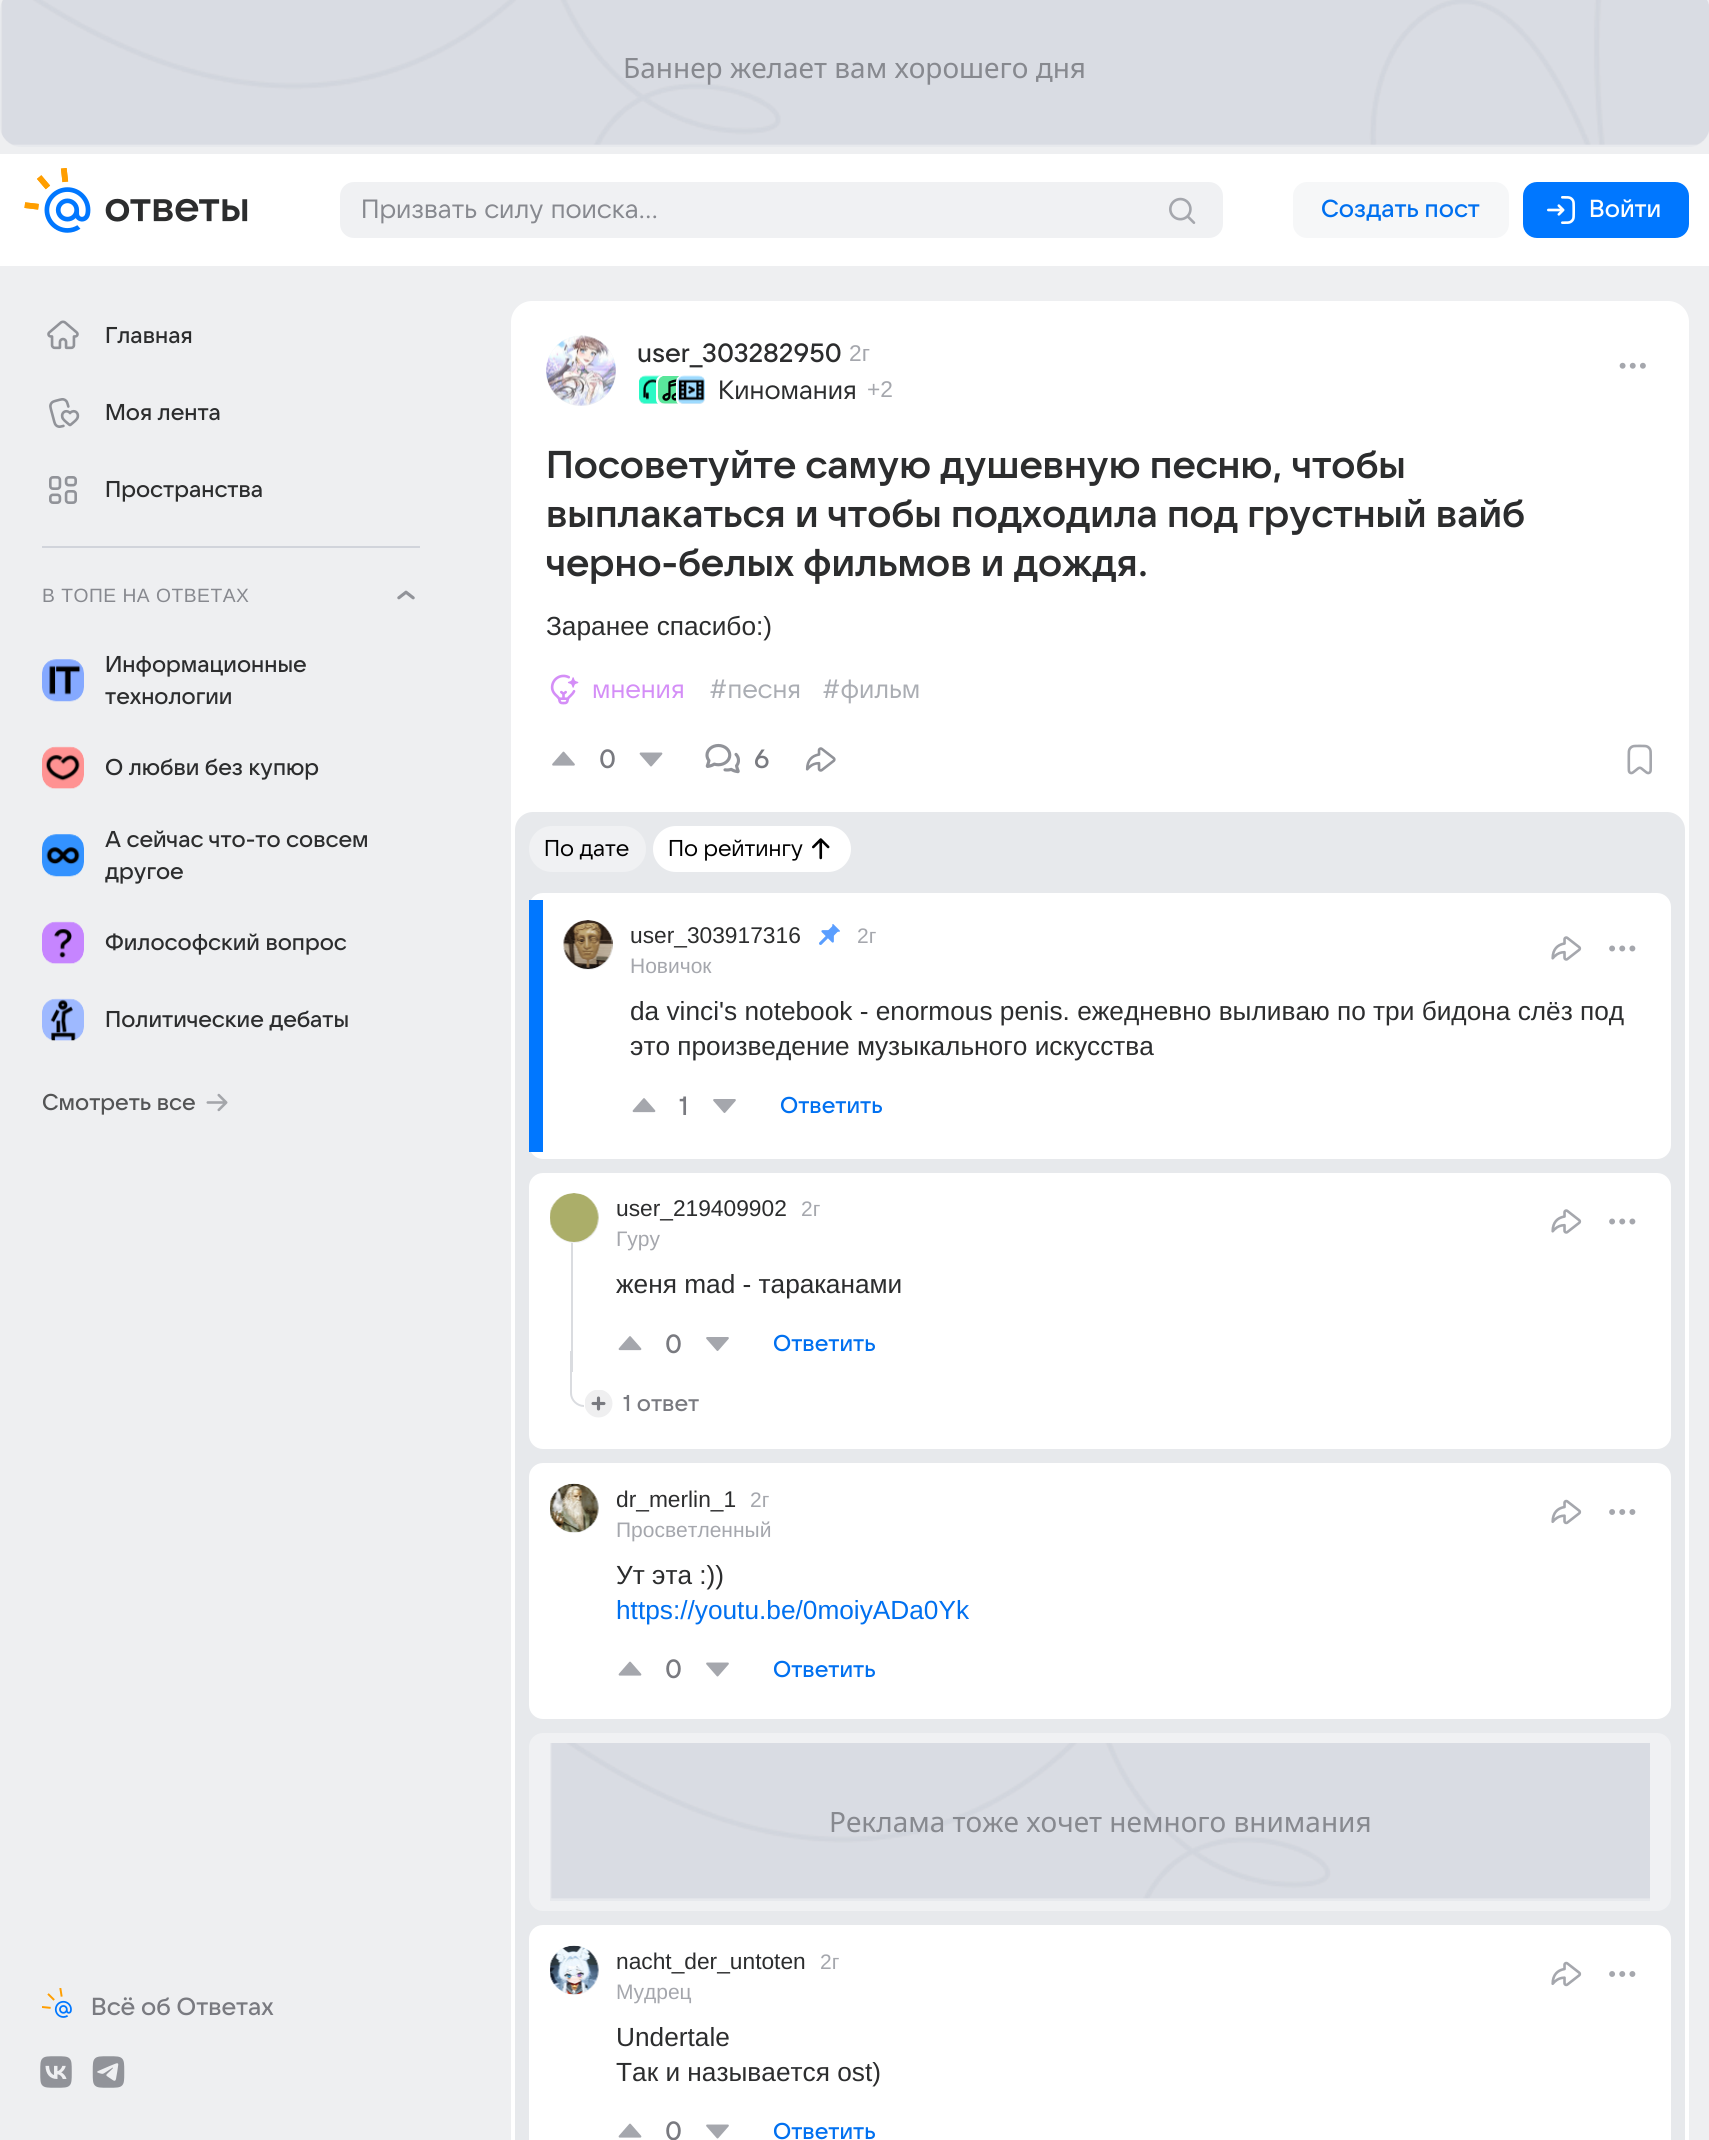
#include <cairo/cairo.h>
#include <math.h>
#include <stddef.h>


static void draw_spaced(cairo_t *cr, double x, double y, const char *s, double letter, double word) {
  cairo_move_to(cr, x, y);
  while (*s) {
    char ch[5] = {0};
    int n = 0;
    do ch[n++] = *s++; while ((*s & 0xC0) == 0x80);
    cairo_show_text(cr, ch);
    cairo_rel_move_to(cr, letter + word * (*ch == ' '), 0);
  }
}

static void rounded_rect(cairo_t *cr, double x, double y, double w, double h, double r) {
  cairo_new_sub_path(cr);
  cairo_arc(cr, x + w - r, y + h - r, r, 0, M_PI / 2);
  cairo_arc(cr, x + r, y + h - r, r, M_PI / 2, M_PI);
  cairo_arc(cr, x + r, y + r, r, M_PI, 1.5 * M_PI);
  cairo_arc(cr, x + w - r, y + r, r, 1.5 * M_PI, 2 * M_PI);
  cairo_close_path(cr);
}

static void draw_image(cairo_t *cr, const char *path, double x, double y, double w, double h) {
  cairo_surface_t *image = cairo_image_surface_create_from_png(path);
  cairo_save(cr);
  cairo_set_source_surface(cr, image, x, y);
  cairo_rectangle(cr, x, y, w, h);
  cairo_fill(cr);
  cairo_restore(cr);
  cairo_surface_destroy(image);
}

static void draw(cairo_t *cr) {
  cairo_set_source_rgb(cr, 238 / 255.0, 239 / 255.0, 241 / 255.0);
  cairo_paint(cr);
  cairo_set_source_rgb(cr, 231 / 255.0, 233 / 255.0, 237 / 255.0);
  rounded_rect(cr, 0, -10, 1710, 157, 21);
  cairo_fill(cr);
  draw_image(cr, "images/1.png", 1, 0, 1708, 145);
  cairo_set_source_rgb(cr, 1, 1, 1);
  cairo_rectangle(cr, 0, 154, 1709, 112);
  cairo_fill(cr);
  draw_image(cr, "images/2.png", 24, 168, 224, 65);
  cairo_set_source_rgb(cr, 240 / 255.0, 241 / 255.0, 243 / 255.0);
  rounded_rect(cr, 340, 182, 883, 56, 14);
  cairo_fill(cr);
  draw_image(cr, "images/3.png", 1169, 197, 27, 27);
  cairo_set_source_rgb(cr, 246 / 255.0, 247 / 255.0, 248 / 255.0);
  rounded_rect(cr, 1293, 182, 216, 56, 14);
  cairo_fill(cr);
  cairo_set_source_rgb(cr, 0, 119 / 255.0, 1);
  rounded_rect(cr, 1523, 182, 166, 56, 14);
  cairo_fill(cr);
  draw_image(cr, "images/4.png", 1547, 196, 28, 28);
  draw_image(cr, "images/5.png", 47, 320, 32, 30);
  draw_image(cr, "images/6.png", 49, 398, 31, 30);
  draw_image(cr, "images/7.png", 49, 476, 28, 28);
  cairo_set_source_rgb(cr, 209 / 255.0, 212 / 255.0, 219 / 255.0);
  cairo_rectangle(cr, 42, 546, 378, 2);
  cairo_fill(cr);
  draw_image(cr, "images/8.png", 397, 590, 18, 10);
  draw_image(cr, "images/9.png", 42, 659, 42, 43);
  draw_image(cr, "images/10.png", 42, 746, 42, 43);
  draw_image(cr, "images/11.png", 42, 834, 42, 43);
  draw_image(cr, "images/12.png", 42, 921, 42, 43);
  draw_image(cr, "images/13.png", 42, 998, 42, 43);
  draw_image(cr, "images/14.png", 206, 1093, 22, 19);
  draw_image(cr, "images/15.png", 42, 1988, 30, 30);
  draw_image(cr, "images/16.png", 40, 2056, 32, 32);
  draw_image(cr, "images/17.png", 92, 2056, 33, 32);
  cairo_set_source_rgb(cr, 1, 1, 1);
  rounded_rect(cr, 511, 301, 1178, 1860, 21);
  cairo_fill(cr);
  cairo_set_source_rgb(cr, 240 / 255.0, 241 / 255.0, 243 / 255.0);
  cairo_arc(cr, 581, 371, 35, 0, 2 * M_PI);
  cairo_fill(cr);
  draw_image(cr, "images/18.png", 546, 335, 70, 71);
  rounded_rect(cr, 638, 376, 30, 29, 6);
  cairo_fill_preserve(cr);
  cairo_set_source_rgb(cr, 1, 1, 1);
  cairo_stroke(cr);
  draw_image(cr, "images/19.png", 639, 375, 24, 29);
  cairo_set_source_rgb(cr, 240 / 255.0, 241 / 255.0, 243 / 255.0);
  rounded_rect(cr, 657, 376, 30, 29, 6);
  cairo_fill_preserve(cr);
  cairo_set_source_rgb(cr, 1, 1, 1);
  cairo_stroke(cr);
  draw_image(cr, "images/20.png", 658, 376, 22, 28);
  cairo_set_source_rgb(cr, 240 / 255.0, 241 / 255.0, 243 / 255.0);
  rounded_rect(cr, 677, 376, 29, 29, 6);
  cairo_fill_preserve(cr);
  cairo_set_source_rgb(cr, 1, 1, 1);
  cairo_stroke(cr);
  draw_image(cr, "images/21.png", 677, 375, 28, 29);
  draw_image(cr, "images/22.png", 1619, 362, 27, 7);
  draw_image(cr, "images/23.png", 550, 674, 29, 31);
  draw_image(cr, "images/24.png", 552, 751, 23, 15);
  draw_image(cr, "images/25.png", 639, 752, 24, 15);
  draw_image(cr, "images/26.png", 705, 743, 35, 31);
  draw_image(cr, "images/27.png", 805, 747, 31, 25);
  draw_image(cr, "images/28.png", 1627, 744, 25, 31);
  cairo_set_source_rgb(cr, 231 / 255.0, 233 / 255.0, 236 / 255.0);
  rounded_rect(cr, 515, 812, 1170, 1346, 18);
  cairo_fill(cr);
  cairo_set_source_rgb(cr, 240 / 255.0, 241 / 255.0, 243 / 255.0);
  rounded_rect(cr, 529, 826, 117, 46, 23);
  cairo_fill(cr);
  cairo_set_source_rgb(cr, 1, 1, 1);
  rounded_rect(cr, 653, 826, 198, 46, 23);
  cairo_fill(cr);
  draw_image(cr, "images/29.png", 812, 838, 18, 22);
  rounded_rect(cr, 529, 893, 1142, 266, 14);
  cairo_fill(cr);
  cairo_set_source_rgb(cr, 0, 119 / 255.0, 1);
  cairo_rectangle(cr, 529, 900, 14, 252);
  cairo_fill(cr);
  cairo_set_source_rgb(cr, 240 / 255.0, 241 / 255.0, 243 / 255.0);
  cairo_arc(cr, 588.5, 945.5, 24.5, 0, 2 * M_PI);
  cairo_fill(cr);
  draw_image(cr, "images/30.png", 563, 920, 50, 49);
  draw_image(cr, "images/31.png", 819, 924, 21, 21);
  draw_image(cr, "images/32.png", 1551, 936, 31, 25);
  draw_image(cr, "images/33.png", 1609, 945, 27, 7);
  draw_image(cr, "images/34.png", 632, 1098, 24, 15);
  draw_image(cr, "images/35.png", 713, 1099, 23, 14);
  cairo_set_source_rgb(cr, 1, 1, 1);
  rounded_rect(cr, 529, 1173, 1142, 276, 14);
  cairo_fill(cr);
  cairo_set_source_rgb(cr, 218 / 255.0, 220 / 255.0, 224 / 255.0);
  cairo_rectangle(cr, 571, 1242, 2, 130);
  cairo_fill(cr);
  cairo_set_source_rgb(cr, 240 / 255.0, 241 / 255.0, 243 / 255.0);
  cairo_arc(cr, 574.5, 1218.5, 24.5, 0, 2 * M_PI);
  cairo_fill(cr);
  draw_image(cr, "images/36.png", 550, 1193, 49, 49);
  draw_image(cr, "images/32.png", 1551, 1209, 31, 25);
  draw_image(cr, "images/33.png", 1609, 1218, 27, 7);
  draw_image(cr, "images/34.png", 618, 1336, 24, 15);
  draw_image(cr, "images/35.png", 706, 1337, 23, 14);
  cairo_set_source_rgb(cr, 218 / 255.0, 220 / 255.0, 224 / 255.0);
  cairo_set_fill_rule(cr, CAIRO_FILL_RULE_EVEN_ODD);
  cairo_new_path(cr);
  cairo_move_to(cr, 570, 1351);
  cairo_line_to(cr, 584, 1351);
  cairo_line_to(cr, 584, 1407);
  cairo_curve_to(cr, 577, 1407, 570, 1401, 570, 1393);
  cairo_close_path(cr);
  cairo_move_to(cr, 572, 1351);
  cairo_line_to(cr, 584, 1351);
  cairo_line_to(cr, 584, 1405);
  cairo_curve_to(cr, 578, 1405, 572, 1400, 572, 1393);
  cairo_close_path(cr);
  cairo_fill(cr);
  draw_image(cr, "images/37.png", 585, 1390, 28, 28);
  cairo_set_source_rgb(cr, 1, 1, 1);
  rounded_rect(cr, 529, 1463, 1142, 256, 14);
  cairo_fill(cr);
  cairo_set_source_rgb(cr, 240 / 255.0, 241 / 255.0, 243 / 255.0);
  cairo_arc(cr, 574.5, 1508.5, 24.5, 0, 2 * M_PI);
  cairo_fill(cr);
  draw_image(cr, "images/38.png", 550, 1483, 49, 50);
  draw_image(cr, "images/39.png", 1551, 1499, 31, 26);
  draw_image(cr, "images/40.png", 1609, 1509, 27, 6);
  draw_image(cr, "images/41.png", 618, 1661, 24, 15);
  draw_image(cr, "images/42.png", 706, 1662, 23, 15);
  rounded_rect(cr, 529, 1733, 1142, 178, 14);
  cairo_fill(cr);
  cairo_set_source_rgb(cr, 231 / 255.0, 233 / 255.0, 237 / 255.0);
  cairo_rectangle(cr, 550, 1743, 1100, 158);
  cairo_fill(cr);
  draw_image(cr, "images/43.png", 551, 1743, 1099, 156);
  cairo_set_source_rgb(cr, 1, 1, 1);
  rounded_rect(cr, 529, 1925, 1142, 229, 14);
  cairo_fill(cr);
  cairo_set_source_rgb(cr, 240 / 255.0, 241 / 255.0, 243 / 255.0);
  cairo_arc(cr, 574.5, 1970.5, 24.5, 0, 2 * M_PI);
  cairo_fill(cr);
  draw_image(cr, "images/44.png", 550, 1945, 49, 50);
  draw_image(cr, "images/39.png", 1551, 1961, 31, 26);
  draw_image(cr, "images/40.png", 1609, 1971, 27, 6);
  draw_image(cr, "images/41.png", 618, 2123, 24, 15);
  draw_image(cr, "images/42.png", 706, 2124, 23, 15);
  cairo_select_font_face(cr, "Noto Sans", CAIRO_FONT_SLANT_NORMAL, CAIRO_FONT_WEIGHT_NORMAL);
  cairo_set_font_size(cr, 28);
  cairo_set_source_rgb(cr, 135 / 255.0, 137 / 255.0, 143 / 255.0);
  cairo_move_to(cr, 623, 78);
  cairo_show_text(cr, "Баннер желает вам хорошего дня");
  cairo_select_font_face(cr, "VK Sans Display", CAIRO_FONT_SLANT_NORMAL, CAIRO_FONT_WEIGHT_NORMAL);
  cairo_set_font_size(cr, 26.25);
  draw_spaced(cr, 361, 218, "Призвать силу поиска...", 0, 1);
  cairo_select_font_face(cr, "VK Sans Display Medium", CAIRO_FONT_SLANT_NORMAL, CAIRO_FONT_WEIGHT_NORMAL);
  cairo_set_font_size(cr, 24.5);
  cairo_set_source_rgb(cr, 0, 112 / 255.0, 240 / 255.0);
  cairo_move_to(cr, 1321, 217);
  cairo_show_text(cr, "Создать пост");
  cairo_set_source_rgb(cr, 1, 1, 1);
  cairo_move_to(cr, 1589, 217);
  cairo_show_text(cr, "Войти");
  cairo_set_font_size(cr, 22.75);
  cairo_set_source_rgb(cr, 44 / 255.0, 45 / 255.0, 46 / 255.0);
  cairo_move_to(cr, 105, 343);
  cairo_show_text(cr, "Главная");
  cairo_move_to(cr, 105, 420);
  cairo_show_text(cr, "Моя лента");
  cairo_move_to(cr, 105, 497);
  cairo_show_text(cr, "Пространства");
  cairo_select_font_face(cr, "Liberation Sans", CAIRO_FONT_SLANT_NORMAL, CAIRO_FONT_WEIGHT_NORMAL);
  cairo_set_font_size(cr, 19.25);
  cairo_set_source_rgb(cr, 135 / 255.0, 137 / 255.0, 143 / 255.0);
  draw_spaced(cr, 42, 602, "В ТОПЕ НА ОТВЕТАХ", 0.5, 0);
  cairo_select_font_face(cr, "VK Sans Display Medium", CAIRO_FONT_SLANT_NORMAL, CAIRO_FONT_WEIGHT_NORMAL);
  cairo_set_font_size(cr, 22.75);
  cairo_set_source_rgb(cr, 44 / 255.0, 45 / 255.0, 46 / 255.0);
  cairo_move_to(cr, 105, 672);
  cairo_show_text(cr, "Информационные");
  cairo_move_to(cr, 105, 704);
  cairo_show_text(cr, "технологии");
  cairo_move_to(cr, 105, 775);
  cairo_show_text(cr, "О любви без купюр");
  cairo_move_to(cr, 105, 847);
  cairo_show_text(cr, "А сейчас что-то совсем");
  cairo_move_to(cr, 105, 879);
  cairo_show_text(cr, "другое");
  cairo_move_to(cr, 105, 950);
  cairo_show_text(cr, "Философский вопрос");
  cairo_move_to(cr, 105, 1027);
  cairo_show_text(cr, "Политические дебаты");
  cairo_set_source_rgb(cr, 83 / 255.0, 84 / 255.0, 85 / 255.0);
  cairo_move_to(cr, 42, 1110);
  cairo_show_text(cr, "Смотреть все");
  cairo_set_font_size(cr, 24.5);
  cairo_set_source_rgb(cr, 121 / 255.0, 122 / 255.0, 128 / 255.0);
  cairo_move_to(cr, 91, 2015);
  cairo_show_text(cr, "Всё об Ответах");
  cairo_set_font_size(cr, 26.25);
  cairo_set_source_rgb(cr, 44 / 255.0, 45 / 255.0, 46 / 255.0);
  cairo_move_to(cr, 637, 362);
  cairo_show_text(cr, "user_303282950");
  cairo_select_font_face(cr, "Liberation Sans", CAIRO_FONT_SLANT_NORMAL, CAIRO_FONT_WEIGHT_NORMAL);
  cairo_set_font_size(cr, 22.75);
  cairo_set_source_rgb(cr, 165 / 255.0, 167 / 255.0, 173 / 255.0);
  cairo_move_to(cr, 849, 361);
  cairo_show_text(cr, "2г");
  cairo_select_font_face(cr, "VK Sans Display", CAIRO_FONT_SLANT_NORMAL, CAIRO_FONT_WEIGHT_NORMAL);
  cairo_set_font_size(cr, 26.25);
  cairo_set_source_rgb(cr, 44 / 255.0, 45 / 255.0, 46 / 255.0);
  cairo_move_to(cr, 718, 399);
  cairo_show_text(cr, "Киномания");
  cairo_select_font_face(cr, "Liberation Sans", CAIRO_FONT_SLANT_NORMAL, CAIRO_FONT_WEIGHT_NORMAL);
  cairo_set_font_size(cr, 22.75);
  cairo_set_source_rgb(cr, 165 / 255.0, 167 / 255.0, 173 / 255.0);
  cairo_move_to(cr, 867, 397);
  cairo_show_text(cr, "+2");
  cairo_select_font_face(cr, "VK Sans Display SemiBold", CAIRO_FONT_SLANT_NORMAL, CAIRO_FONT_WEIGHT_NORMAL);
  cairo_set_font_size(cr, 38.5);
  cairo_set_source_rgb(cr, 44 / 255.0, 45 / 255.0, 46 / 255.0);
  cairo_move_to(cr, 546, 478);
  cairo_show_text(cr, "Посоветуйте самую душевную песню, чтобы");
  cairo_move_to(cr, 546, 527);
  cairo_show_text(cr, "выплакаться и чтобы подходила под грустный вайб");
  cairo_move_to(cr, 546, 576);
  cairo_show_text(cr, "черно-белых фильмов и дождя.");
  cairo_select_font_face(cr, "Liberation Sans", CAIRO_FONT_SLANT_NORMAL, CAIRO_FONT_WEIGHT_NORMAL);
  cairo_set_font_size(cr, 26.25);
  cairo_move_to(cr, 546, 635);
  cairo_show_text(cr, "Заранее спасибо:)");
  cairo_select_font_face(cr, "VK Sans Display", CAIRO_FONT_SLANT_NORMAL, CAIRO_FONT_WEIGHT_NORMAL);
  cairo_set_source_rgb(cr, 212 / 255.0, 142 / 255.0, 247 / 255.0);
  cairo_move_to(cr, 592, 698);
  cairo_show_text(cr, "мнения");
  cairo_set_source_rgb(cr, 170 / 255.0, 173 / 255.0, 179 / 255.0);
  cairo_move_to(cr, 709, 698);
  cairo_show_text(cr, "#песня");
  cairo_move_to(cr, 822, 698);
  cairo_show_text(cr, "#фильм");
  cairo_select_font_face(cr, "VK Sans Display Medium", CAIRO_FONT_SLANT_NORMAL, CAIRO_FONT_WEIGHT_NORMAL);
  cairo_set_source_rgb(cr, 121 / 255.0, 122 / 255.0, 128 / 255.0);
  cairo_move_to(cr, 599, 768);
  cairo_show_text(cr, "0");
  cairo_move_to(cr, 754, 768);
  cairo_show_text(cr, "6");
  cairo_select_font_face(cr, "VK Sans Display", CAIRO_FONT_SLANT_NORMAL, CAIRO_FONT_WEIGHT_NORMAL);
  cairo_set_font_size(cr, 22.75);
  cairo_set_source_rgb(cr, 0, 0, 0);
  cairo_move_to(cr, 544, 856);
  cairo_show_text(cr, "По дате");
  cairo_move_to(cr, 668, 856);
  cairo_show_text(cr, "По рейтингу");
  cairo_select_font_face(cr, "Liberation Sans", CAIRO_FONT_SLANT_NORMAL, CAIRO_FONT_WEIGHT_NORMAL);
  cairo_set_source_rgb(cr, 44 / 255.0, 45 / 255.0, 46 / 255.0);
  cairo_move_to(cr, 630, 943);
  cairo_show_text(cr, "user_303917316");
  cairo_set_font_size(cr, 21);
  cairo_set_source_rgb(cr, 165 / 255.0, 167 / 255.0, 173 / 255.0);
  cairo_move_to(cr, 630, 973);
  cairo_show_text(cr, "Новичок");
  cairo_move_to(cr, 857, 943);
  cairo_show_text(cr, "2г");
  cairo_set_font_size(cr, 26.25);
  cairo_set_source_rgb(cr, 44 / 255.0, 45 / 255.0, 46 / 255.0);
  cairo_move_to(cr, 630, 1020);
  cairo_show_text(cr, "da vinci's notebook - enormous penis. ежедневно выливаю по три бидона слёз под");
  cairo_move_to(cr, 630, 1055);
  cairo_show_text(cr, "это произведение музыкального искусства");
  cairo_select_font_face(cr, "VK Sans Display Medium", CAIRO_FONT_SLANT_NORMAL, CAIRO_FONT_WEIGHT_NORMAL);
  cairo_set_source_rgb(cr, 121 / 255.0, 122 / 255.0, 128 / 255.0);
  cairo_move_to(cr, 679, 1115);
  cairo_show_text(cr, "1");
  cairo_set_font_size(cr, 22.75);
  cairo_set_source_rgb(cr, 0, 112 / 255.0, 240 / 255.0);
  cairo_move_to(cr, 780, 1113);
  cairo_show_text(cr, "Ответить");
  cairo_select_font_face(cr, "Liberation Sans", CAIRO_FONT_SLANT_NORMAL, CAIRO_FONT_WEIGHT_NORMAL);
  cairo_set_source_rgb(cr, 44 / 255.0, 45 / 255.0, 46 / 255.0);
  cairo_move_to(cr, 616, 1216);
  cairo_show_text(cr, "user_219409902");
  cairo_set_font_size(cr, 21);
  cairo_set_source_rgb(cr, 165 / 255.0, 167 / 255.0, 173 / 255.0);
  cairo_move_to(cr, 616, 1246);
  cairo_show_text(cr, "Гуру");
  cairo_move_to(cr, 801, 1216);
  cairo_show_text(cr, "2г");
  cairo_set_font_size(cr, 26.25);
  cairo_set_source_rgb(cr, 44 / 255.0, 45 / 255.0, 46 / 255.0);
  cairo_move_to(cr, 616, 1293);
  cairo_show_text(cr, "женя mad - тараканами");
  cairo_select_font_face(cr, "VK Sans Display Medium", CAIRO_FONT_SLANT_NORMAL, CAIRO_FONT_WEIGHT_NORMAL);
  cairo_set_source_rgb(cr, 121 / 255.0, 122 / 255.0, 128 / 255.0);
  cairo_move_to(cr, 665, 1353);
  cairo_show_text(cr, "0");
  cairo_set_font_size(cr, 22.75);
  cairo_set_source_rgb(cr, 0, 112 / 255.0, 240 / 255.0);
  cairo_move_to(cr, 773, 1351);
  cairo_show_text(cr, "Ответить");
  cairo_set_source_rgb(cr, 121 / 255.0, 122 / 255.0, 128 / 255.0);
  cairo_move_to(cr, 623, 1411);
  cairo_show_text(cr, "1 ответ");
  cairo_select_font_face(cr, "Liberation Sans", CAIRO_FONT_SLANT_NORMAL, CAIRO_FONT_WEIGHT_NORMAL);
  cairo_set_source_rgb(cr, 44 / 255.0, 45 / 255.0, 46 / 255.0);
  cairo_move_to(cr, 616, 1507);
  cairo_show_text(cr, "dr_merlin_1");
  cairo_set_font_size(cr, 21);
  cairo_set_source_rgb(cr, 165 / 255.0, 167 / 255.0, 173 / 255.0);
  cairo_move_to(cr, 616, 1537);
  cairo_show_text(cr, "Просветленный");
  cairo_move_to(cr, 750, 1507);
  cairo_show_text(cr, "2г");
  cairo_set_font_size(cr, 26.25);
  cairo_set_source_rgb(cr, 44 / 255.0, 45 / 255.0, 46 / 255.0);
  cairo_move_to(cr, 616, 1584);
  cairo_show_text(cr, "Ут эта :))");
  cairo_set_source_rgb(cr, 0, 112 / 255.0, 240 / 255.0);
  cairo_move_to(cr, 616, 1619);
  cairo_show_text(cr, "https://youtu.be/0moiyADa0Yk");
  cairo_select_font_face(cr, "VK Sans Display Medium", CAIRO_FONT_SLANT_NORMAL, CAIRO_FONT_WEIGHT_NORMAL);
  cairo_set_source_rgb(cr, 121 / 255.0, 122 / 255.0, 128 / 255.0);
  cairo_move_to(cr, 665, 1678);
  cairo_show_text(cr, "0");
  cairo_set_font_size(cr, 22.75);
  cairo_set_source_rgb(cr, 0, 112 / 255.0, 240 / 255.0);
  cairo_move_to(cr, 773, 1677);
  cairo_show_text(cr, "Ответить");
  cairo_select_font_face(cr, "Noto Sans", CAIRO_FONT_SLANT_NORMAL, CAIRO_FONT_WEIGHT_NORMAL);
  cairo_set_font_size(cr, 28);
  cairo_set_source_rgb(cr, 135 / 255.0, 137 / 255.0, 143 / 255.0);
  cairo_move_to(cr, 829, 1832);
  cairo_show_text(cr, "Реклама тоже хочет немного внимания");
  cairo_select_font_face(cr, "Liberation Sans", CAIRO_FONT_SLANT_NORMAL, CAIRO_FONT_WEIGHT_NORMAL);
  cairo_set_font_size(cr, 22.75);
  cairo_set_source_rgb(cr, 44 / 255.0, 45 / 255.0, 46 / 255.0);
  cairo_move_to(cr, 616, 1969);
  cairo_show_text(cr, "nacht_der_untoten");
  cairo_set_font_size(cr, 21);
  cairo_set_source_rgb(cr, 165 / 255.0, 167 / 255.0, 173 / 255.0);
  cairo_move_to(cr, 616, 1999);
  cairo_show_text(cr, "Мудрец");
  cairo_move_to(cr, 820, 1969);
  cairo_show_text(cr, "2г");
  cairo_set_font_size(cr, 26.25);
  cairo_set_source_rgb(cr, 44 / 255.0, 45 / 255.0, 46 / 255.0);
  cairo_move_to(cr, 616, 2046);
  cairo_show_text(cr, "Undertale");
  cairo_move_to(cr, 616, 2081);
  cairo_show_text(cr, "Так и называется ost)");
  cairo_select_font_face(cr, "VK Sans Display Medium", CAIRO_FONT_SLANT_NORMAL, CAIRO_FONT_WEIGHT_NORMAL);
  cairo_set_source_rgb(cr, 121 / 255.0, 122 / 255.0, 128 / 255.0);
  cairo_move_to(cr, 665, 2140);
  cairo_show_text(cr, "0");
  cairo_set_font_size(cr, 22.75);
  cairo_set_source_rgb(cr, 0, 112 / 255.0, 240 / 255.0);
  cairo_move_to(cr, 773, 2139);
  cairo_show_text(cr, "Ответить");
}

int main(void) {
  cairo_surface_t *surface = cairo_image_surface_create(CAIRO_FORMAT_RGB24, 1709, 2140);
  cairo_t *cr = cairo_create(surface);
  cairo_font_options_t *options = cairo_font_options_create();
  cairo_font_options_set_hint_metrics(options, CAIRO_HINT_METRICS_OFF);
  cairo_font_options_set_hint_style(options, CAIRO_HINT_STYLE_NONE);
  cairo_set_font_options(cr, options);
  cairo_set_miter_limit(cr, 4);
  draw(cr);
  cairo_surface_write_to_png(surface, "out.png");
  cairo_font_options_destroy(options);
  cairo_destroy(cr);
  cairo_surface_destroy(surface);
  return 0;
}
